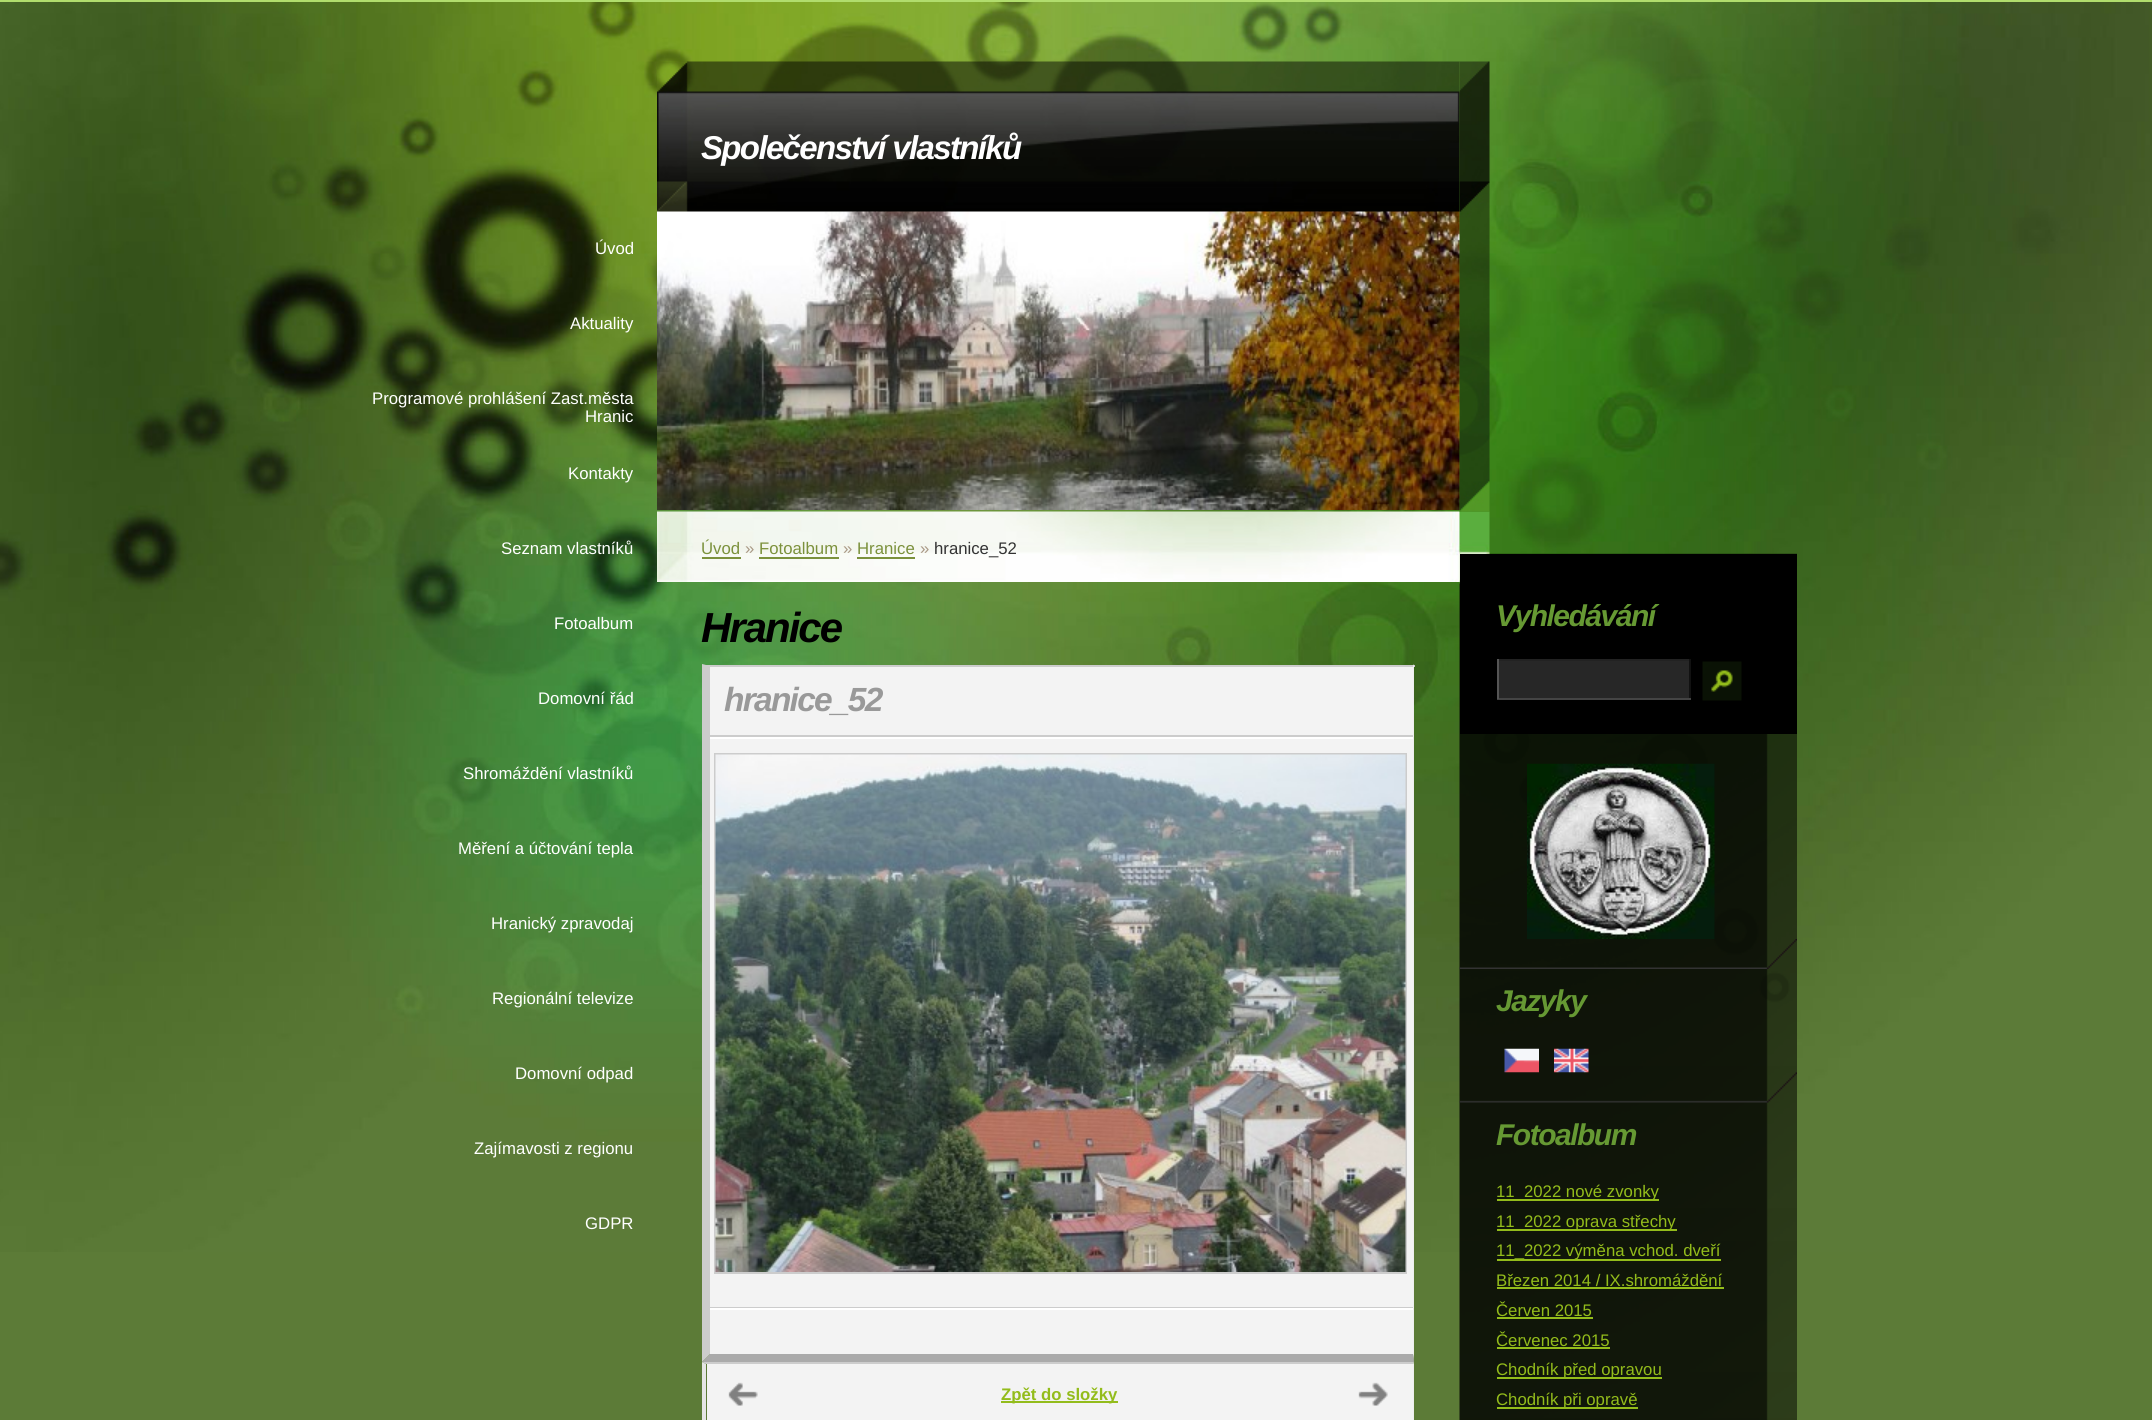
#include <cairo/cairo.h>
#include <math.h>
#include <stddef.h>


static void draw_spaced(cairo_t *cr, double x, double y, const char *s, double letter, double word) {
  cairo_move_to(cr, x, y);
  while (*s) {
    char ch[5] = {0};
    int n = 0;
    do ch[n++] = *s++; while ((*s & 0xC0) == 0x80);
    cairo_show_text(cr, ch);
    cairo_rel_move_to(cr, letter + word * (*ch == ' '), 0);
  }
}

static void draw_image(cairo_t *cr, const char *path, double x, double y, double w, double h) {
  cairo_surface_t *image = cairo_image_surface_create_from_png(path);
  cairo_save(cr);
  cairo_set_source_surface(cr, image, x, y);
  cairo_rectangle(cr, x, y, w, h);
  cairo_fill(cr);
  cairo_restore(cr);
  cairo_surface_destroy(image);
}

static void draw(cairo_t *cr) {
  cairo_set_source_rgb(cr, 92 / 255.0, 123 / 255.0, 55 / 255.0);
  cairo_paint(cr);
  draw_image(cr, "images/1.png", 0, 2, 2152, 1250);
  cairo_set_source_rgb(cr, 177 / 255.0, 221 / 255.0, 109 / 255.0);
  cairo_rectangle(cr, 0, 0, 2152, 2);
  cairo_fill(cr);
  draw_image(cr, "images/9.png", 1459, 553, 338, 867);
  draw_image(cr, "images/5.png", 657, 511, 833, 71);
  draw_image(cr, "images/2.png", 1459, 61, 31, 451);
  draw_image(cr, "images/3.png", 657, 210, 803, 300);
  draw_image(cr, "images/4.png", 657, 61, 803, 151);
  cairo_set_source_rgb(cr, 123 / 255.0, 145 / 255.0, 60 / 255.0);
  cairo_rectangle(cr, 702, 557, 39, 2);
  cairo_fill(cr);
  cairo_rectangle(cr, 759, 557, 80, 2);
  cairo_fill(cr);
  cairo_rectangle(cr, 857, 557, 58, 2);
  cairo_fill(cr);
  cairo_set_source_rgb(cr, 243 / 255.0, 243 / 255.0, 243 / 255.0);
  cairo_rectangle(cr, 710, 667, 703, 687);
  cairo_fill(cr);
  cairo_set_source_rgb(cr, 204 / 255.0, 204 / 255.0, 204 / 255.0);
  cairo_rectangle(cr, 702, 665, 713, 2);
  cairo_fill(cr);
  cairo_set_source_rgb(cr, 238 / 255.0, 238 / 255.0, 238 / 255.0);
  cairo_new_path(cr);
  cairo_move_to(cr, 1414, 664);
  cairo_line_to(cr, 1414, 1362);
  cairo_line_to(cr, 1413, 1354);
  cairo_line_to(cr, 1413, 666);
  cairo_close_path(cr);
  cairo_fill(cr);
  cairo_set_source_rgb(cr, 170 / 255.0, 170 / 255.0, 170 / 255.0);
  cairo_new_path(cr);
  cairo_move_to(cr, 1414, 1362);
  cairo_line_to(cr, 702, 1362);
  cairo_line_to(cr, 710, 1354);
  cairo_line_to(cr, 1413, 1354);
  cairo_close_path(cr);
  cairo_fill(cr);
  cairo_set_source_rgb(cr, 204 / 255.0, 204 / 255.0, 204 / 255.0);
  cairo_new_path(cr);
  cairo_move_to(cr, 702, 1362);
  cairo_line_to(cr, 702, 664);
  cairo_line_to(cr, 710, 666);
  cairo_line_to(cr, 710, 1354);
  cairo_close_path(cr);
  cairo_fill(cr);
  cairo_rectangle(cr, 710, 735, 703, 2);
  cairo_fill(cr);
  cairo_set_source_rgb(cr, 1, 1, 1);
  cairo_rectangle(cr, 710, 737, 703, 2);
  cairo_fill(cr);
  cairo_set_source_rgb(cr, 204 / 255.0, 204 / 255.0, 204 / 255.0);
  cairo_rectangle(cr, 710, 1307, 703, 1);
  cairo_fill(cr);
  cairo_rectangle(cr, 715, 754, 691, 519);
  cairo_stroke(cr);
  draw_image(cr, "images/6.png", 715, 754, 691, 518);
  cairo_set_source_rgb(cr, 1, 1, 1);
  cairo_rectangle(cr, 710, 1308, 703, 2);
  cairo_fill(cr);
  cairo_set_source_rgb(cr, 243 / 255.0, 243 / 255.0, 243 / 255.0);
  cairo_rectangle(cr, 707, 1364, 706, 56);
  cairo_fill(cr);
  cairo_set_source_rgb(cr, 204 / 255.0, 204 / 255.0, 204 / 255.0);
  cairo_new_path(cr);
  cairo_move_to(cr, 702, 1362);
  cairo_line_to(cr, 1414, 1362);
  cairo_line_to(cr, 1413, 1364);
  cairo_line_to(cr, 706, 1364);
  cairo_close_path(cr);
  cairo_fill(cr);
  cairo_set_source_rgb(cr, 238 / 255.0, 238 / 255.0, 238 / 255.0);
  cairo_new_path(cr);
  cairo_move_to(cr, 1414, 1362);
  cairo_line_to(cr, 1414, 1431);
  cairo_line_to(cr, 1413, 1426);
  cairo_line_to(cr, 1413, 1364);
  cairo_close_path(cr);
  cairo_fill(cr);
  cairo_set_source_rgb(cr, 229 / 255.0, 229 / 255.0, 229 / 255.0);
  cairo_new_path(cr);
  cairo_move_to(cr, 702, 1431);
  cairo_line_to(cr, 702, 1362);
  cairo_line_to(cr, 706, 1364);
  cairo_line_to(cr, 706, 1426);
  cairo_close_path(cr);
  cairo_fill(cr);
  draw_image(cr, "images/7.png", 728, 1382, 30, 24);
  cairo_set_source_rgb(cr, 147 / 255.0, 188 / 255.0, 27 / 255.0);
  cairo_rectangle(cr, 1001, 1401, 117, 2);
  cairo_fill(cr);
  draw_image(cr, "images/8.png", 1358, 1382, 30, 24);
  cairo_set_source_rgb(cr, 0, 0, 0);
  cairo_rectangle(cr, 1460, 554, 337, 180);
  cairo_fill(cr);
  cairo_set_source_rgb(cr, 39 / 255.0, 39 / 255.0, 39 / 255.0);
  cairo_rectangle(cr, 1499, 661, 190, 37);
  cairo_fill(cr);
  cairo_set_source_rgb(cr, 34 / 255.0, 34 / 255.0, 34 / 255.0);
  cairo_rectangle(cr, 1497, 659, 194, 2);
  cairo_fill(cr);
  cairo_set_source_rgb(cr, 17 / 255.0, 17 / 255.0, 17 / 255.0);
  cairo_rectangle(cr, 1689, 659, 2, 40);
  cairo_fill(cr);
  cairo_set_source_rgb(cr, 68 / 255.0, 68 / 255.0, 68 / 255.0);
  cairo_rectangle(cr, 1497, 698, 194, 2);
  cairo_fill(cr);
  cairo_set_source_rgb(cr, 85 / 255.0, 85 / 255.0, 85 / 255.0);
  cairo_rectangle(cr, 1497, 659, 2, 40);
  cairo_fill(cr);
  draw_image(cr, "images/10.png", 1702, 661, 40, 40);
  draw_image(cr, "images/11.png", 1459, 939, 338, 30);
  draw_image(cr, "images/12.png", 1527, 763, 188, 176);
  draw_image(cr, "images/13.png", 1459, 1072, 338, 31);
  draw_image(cr, "images/14.png", 1504, 1048, 35, 25);
  draw_image(cr, "images/15.png", 1554, 1048, 35, 25);
  cairo_set_source_rgb(cr, 147 / 255.0, 188 / 255.0, 27 / 255.0);
  cairo_rectangle(cr, 1497, 1199, 162, 2);
  cairo_fill(cr);
  cairo_rectangle(cr, 1497, 1229, 180, 2);
  cairo_fill(cr);
  cairo_rectangle(cr, 1497, 1259, 224, 2);
  cairo_fill(cr);
  cairo_rectangle(cr, 1497, 1287, 227, 2);
  cairo_fill(cr);
  cairo_rectangle(cr, 1497, 1317, 96, 2);
  cairo_fill(cr);
  cairo_rectangle(cr, 1497, 1347, 113, 2);
  cairo_fill(cr);
  cairo_rectangle(cr, 1497, 1377, 165, 2);
  cairo_fill(cr);
  cairo_rectangle(cr, 1497, 1407, 141, 2);
  cairo_fill(cr);
  cairo_select_font_face(cr, "Liberation Sans", CAIRO_FONT_SLANT_ITALIC, CAIRO_FONT_WEIGHT_BOLD);
  cairo_set_font_size(cr, 33);
  cairo_set_source_rgb(cr, 1, 1, 1);
  draw_spaced(cr, 701, 159, "Společenství vlastníků", -1.65, 0);
  cairo_select_font_face(cr, "Liberation Sans", CAIRO_FONT_SLANT_NORMAL, CAIRO_FONT_WEIGHT_NORMAL);
  cairo_set_font_size(cr, 16.75);
  cairo_move_to(cr, 595, 254);
  cairo_show_text(cr, "Úvod");
  cairo_move_to(cr, 570, 329);
  cairo_show_text(cr, "Aktuality");
  cairo_move_to(cr, 372, 404);
  cairo_show_text(cr, "Programové prohlášení Zast.města");
  cairo_move_to(cr, 585, 422);
  cairo_show_text(cr, "Hranic");
  cairo_move_to(cr, 568, 479);
  cairo_show_text(cr, "Kontakty");
  cairo_move_to(cr, 501, 554);
  cairo_show_text(cr, "Seznam vlastníků");
  cairo_move_to(cr, 554, 629);
  cairo_show_text(cr, "Fotoalbum");
  cairo_move_to(cr, 538, 704);
  cairo_show_text(cr, "Domovní řád");
  cairo_move_to(cr, 463, 779);
  cairo_show_text(cr, "Shromáždění vlastníků");
  cairo_move_to(cr, 458, 854);
  cairo_show_text(cr, "Měření a účtování tepla");
  cairo_move_to(cr, 491, 929);
  cairo_show_text(cr, "Hranický zpravodaj");
  cairo_move_to(cr, 492, 1004);
  cairo_show_text(cr, "Regionální televize");
  cairo_move_to(cr, 515, 1079);
  cairo_show_text(cr, "Domovní odpad");
  cairo_move_to(cr, 474, 1154);
  cairo_show_text(cr, "Zajímavosti z regionu");
  cairo_move_to(cr, 585, 1229);
  cairo_show_text(cr, "GDPR");
  cairo_set_source_rgb(cr, 123 / 255.0, 145 / 255.0, 60 / 255.0);
  cairo_move_to(cr, 701, 554);
  cairo_show_text(cr, "Úvod");
  cairo_set_source_rgb(cr, 169 / 255.0, 153 / 255.0, 133 / 255.0);
  cairo_move_to(cr, 745, 554);
  cairo_show_text(cr, "»");
  cairo_set_source_rgb(cr, 123 / 255.0, 145 / 255.0, 60 / 255.0);
  cairo_move_to(cr, 759, 554);
  cairo_show_text(cr, "Fotoalbum");
  cairo_set_source_rgb(cr, 169 / 255.0, 153 / 255.0, 133 / 255.0);
  cairo_move_to(cr, 843, 554);
  cairo_show_text(cr, "»");
  cairo_set_source_rgb(cr, 123 / 255.0, 145 / 255.0, 60 / 255.0);
  cairo_move_to(cr, 857, 554);
  cairo_show_text(cr, "Hranice");
  cairo_set_source_rgb(cr, 169 / 255.0, 153 / 255.0, 133 / 255.0);
  cairo_move_to(cr, 920, 554);
  cairo_show_text(cr, "»");
  cairo_set_source_rgb(cr, 51 / 255.0, 51 / 255.0, 51 / 255.0);
  cairo_move_to(cr, 934, 554);
  cairo_show_text(cr, "hranice_52");
  cairo_select_font_face(cr, "Liberation Sans", CAIRO_FONT_SLANT_ITALIC, CAIRO_FONT_WEIGHT_BOLD);
  cairo_set_font_size(cr, 42);
  cairo_set_source_rgb(cr, 0, 0, 0);
  draw_spaced(cr, 701, 642, "Hranice", -2, 0);
  cairo_set_font_size(cr, 33.5);
  cairo_set_source_rgb(cr, 153 / 255.0, 153 / 255.0, 153 / 255.0);
  draw_spaced(cr, 724, 711, "hranice_52", -1.75, 0);
  cairo_select_font_face(cr, "Liberation Sans", CAIRO_FONT_SLANT_NORMAL, CAIRO_FONT_WEIGHT_BOLD);
  cairo_set_font_size(cr, 16.75);
  cairo_set_source_rgb(cr, 147 / 255.0, 188 / 255.0, 27 / 255.0);
  cairo_move_to(cr, 1001, 1400);
  cairo_show_text(cr, "Zpět do složky");
  cairo_select_font_face(cr, "Liberation Sans", CAIRO_FONT_SLANT_ITALIC, CAIRO_FONT_WEIGHT_BOLD);
  cairo_set_font_size(cr, 30);
  cairo_set_source_rgb(cr, 102 / 255.0, 153 / 255.0, 51 / 255.0);
  draw_spaced(cr, 1496, 626, "Vyhledávání", -1.5, 0);
  draw_spaced(cr, 1496, 1011, "Jazyky", -1.5, 0);
  draw_spaced(cr, 1496, 1145, "Fotoalbum", -1.5, 0);
  cairo_select_font_face(cr, "Liberation Sans", CAIRO_FONT_SLANT_NORMAL, CAIRO_FONT_WEIGHT_NORMAL);
  cairo_set_font_size(cr, 16.75);
  cairo_set_source_rgb(cr, 147 / 255.0, 188 / 255.0, 27 / 255.0);
  cairo_move_to(cr, 1496, 1197);
  cairo_show_text(cr, "11_2022 nové zvonky");
  cairo_move_to(cr, 1496, 1227);
  cairo_show_text(cr, "11_2022 oprava střechy");
  cairo_move_to(cr, 1496, 1256);
  cairo_show_text(cr, "11_2022 výměna vchod. dveří");
  cairo_move_to(cr, 1496, 1286);
  cairo_show_text(cr, "Březen 2014 / IX.shromáždění");
  cairo_move_to(cr, 1496, 1316);
  cairo_show_text(cr, "Červen 2015");
  cairo_move_to(cr, 1496, 1346);
  cairo_show_text(cr, "Červenec 2015");
  cairo_move_to(cr, 1496, 1375);
  cairo_show_text(cr, "Chodník před opravou");
  cairo_move_to(cr, 1496, 1405);
  cairo_show_text(cr, "Chodník při opravě");
}

int main(void) {
  cairo_surface_t *surface = cairo_image_surface_create(CAIRO_FORMAT_RGB24, 2152, 1420);
  cairo_t *cr = cairo_create(surface);
  cairo_font_options_t *options = cairo_font_options_create();
  cairo_font_options_set_hint_metrics(options, CAIRO_HINT_METRICS_OFF);
  cairo_font_options_set_hint_style(options, CAIRO_HINT_STYLE_NONE);
  cairo_set_font_options(cr, options);
  cairo_set_miter_limit(cr, 4);
  draw(cr);
  cairo_surface_write_to_png(surface, "out.png");
  cairo_font_options_destroy(options);
  cairo_destroy(cr);
  cairo_surface_destroy(surface);
  return 0;
}
